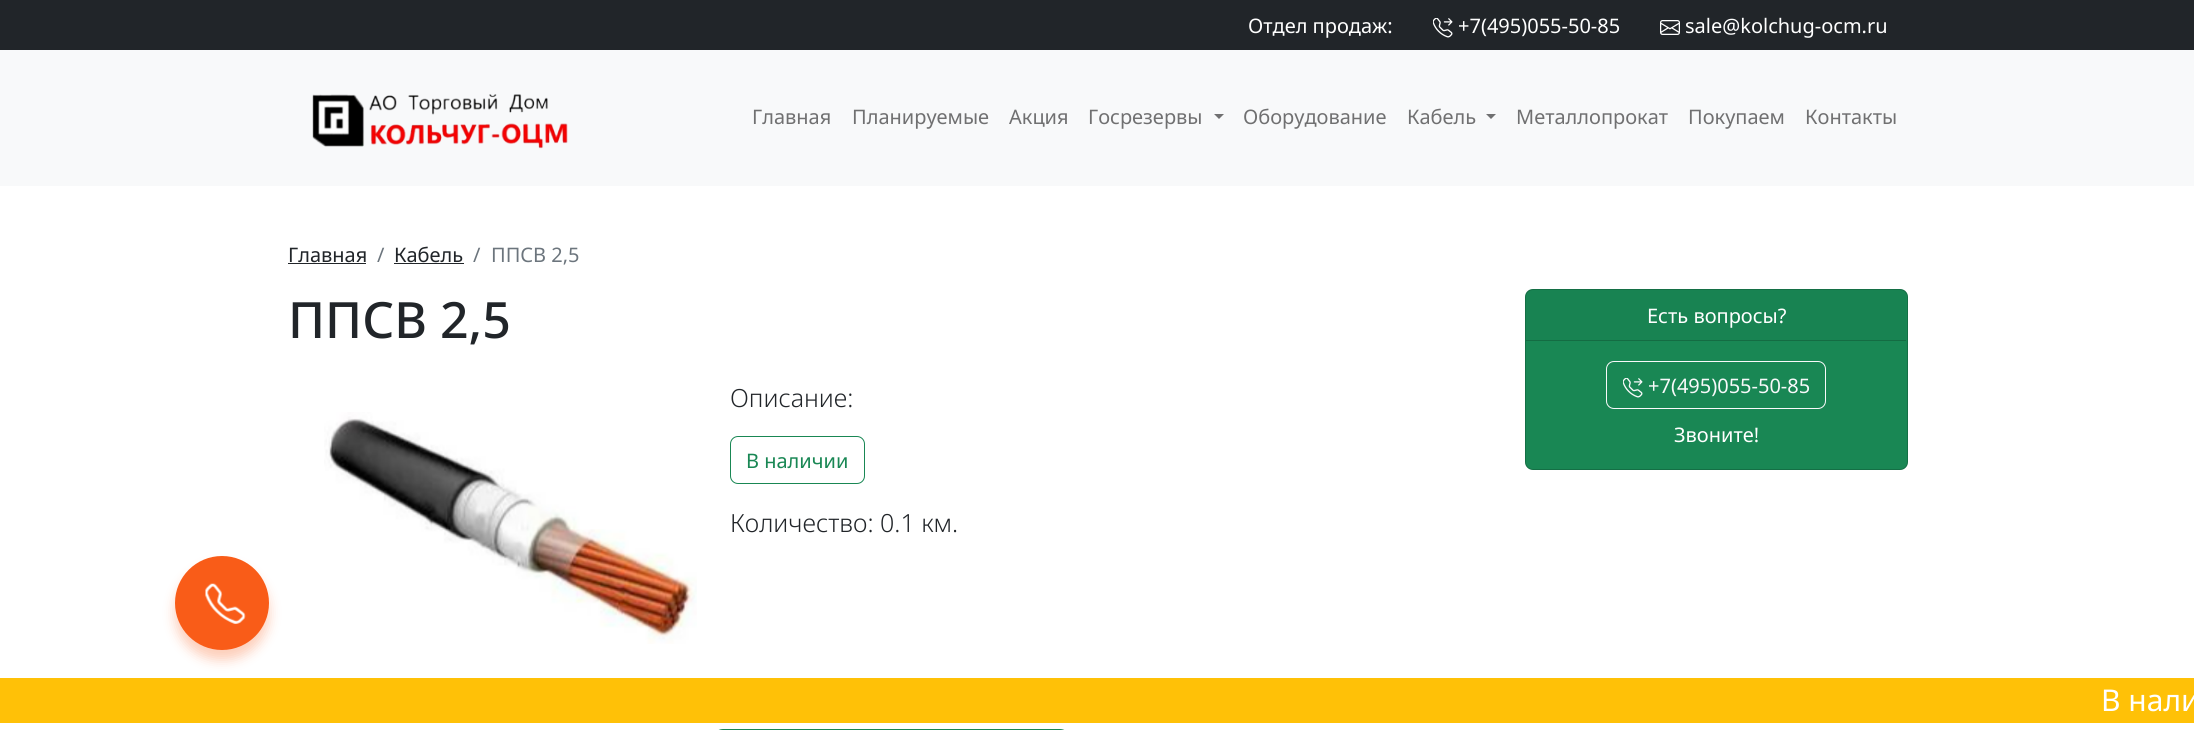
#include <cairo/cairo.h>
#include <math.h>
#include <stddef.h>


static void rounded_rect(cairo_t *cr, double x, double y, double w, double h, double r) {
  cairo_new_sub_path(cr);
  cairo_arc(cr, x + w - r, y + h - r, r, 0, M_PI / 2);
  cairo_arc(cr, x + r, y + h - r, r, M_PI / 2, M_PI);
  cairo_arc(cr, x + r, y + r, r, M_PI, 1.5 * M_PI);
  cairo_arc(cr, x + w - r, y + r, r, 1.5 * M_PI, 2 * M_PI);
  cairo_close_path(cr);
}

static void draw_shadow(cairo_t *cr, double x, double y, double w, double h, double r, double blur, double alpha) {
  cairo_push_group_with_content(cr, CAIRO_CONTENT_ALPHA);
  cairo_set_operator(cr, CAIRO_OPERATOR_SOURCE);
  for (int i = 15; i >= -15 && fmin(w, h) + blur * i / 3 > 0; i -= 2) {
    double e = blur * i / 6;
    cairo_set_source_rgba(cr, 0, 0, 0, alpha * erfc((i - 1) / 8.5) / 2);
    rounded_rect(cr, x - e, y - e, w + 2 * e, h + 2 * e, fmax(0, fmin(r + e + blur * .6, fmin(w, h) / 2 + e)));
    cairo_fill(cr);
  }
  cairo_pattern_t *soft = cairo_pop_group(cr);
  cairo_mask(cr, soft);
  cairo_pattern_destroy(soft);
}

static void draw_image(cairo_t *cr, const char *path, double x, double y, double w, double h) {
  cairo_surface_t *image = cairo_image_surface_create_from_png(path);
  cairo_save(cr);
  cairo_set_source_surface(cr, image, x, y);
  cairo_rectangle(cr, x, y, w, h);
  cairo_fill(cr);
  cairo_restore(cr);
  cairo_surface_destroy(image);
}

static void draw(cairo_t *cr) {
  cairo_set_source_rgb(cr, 1, 1, 1);
  cairo_paint(cr);
  cairo_set_source_rgb(cr, 33 / 255.0, 37 / 255.0, 41 / 255.0);
  cairo_rectangle(cr, 0, 0, 2194, 50);
  cairo_fill(cr);
  draw_image(cr, "images/1.png", 1433, 18, 20, 20);
  draw_image(cr, "images/2.png", 1660, 20, 20, 15);
  cairo_set_source_rgb(cr, 248 / 255.0, 249 / 255.0, 250 / 255.0);
  cairo_rectangle(cr, 0, 50, 2194, 136);
  cairo_fill(cr);
  draw_image(cr, "images/3.png", 312, 94, 256, 55);
  cairo_set_source_rgb(cr, 112 / 255.0, 112 / 255.0, 113 / 255.0);
  cairo_new_path(cr);
  cairo_move_to(cr, 1214, 114);
  cairo_line_to(cr, 1224, 114);
  cairo_line_to(cr, 1219, 119);
  cairo_close_path(cr);
  cairo_fill(cr);
  cairo_new_path(cr);
  cairo_move_to(cr, 1486, 114);
  cairo_line_to(cr, 1496, 114);
  cairo_line_to(cr, 1491, 119);
  cairo_close_path(cr);
  cairo_fill(cr);
  cairo_set_source_rgb(cr, 33 / 255.0, 37 / 255.0, 41 / 255.0);
  cairo_rectangle(cr, 288, 263, 78, 1);
  cairo_fill(cr);
  cairo_rectangle(cr, 394, 263, 70, 1);
  cairo_fill(cr);
  draw_image(cr, "images/4.png", 324, 412, 373, 232);
  rounded_rect(cr, 730.5, 436.5, 134, 47, 7.5);
  cairo_set_source_rgb(cr, 25 / 255.0, 135 / 255.0, 84 / 255.0);
  cairo_set_line_width(cr, 1);
  cairo_stroke(cr);
  rounded_rect(cr, 713.5, 729.5, 356, 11, 9.5);
  cairo_stroke(cr);
  rounded_rect(cr, 1525, 289, 383, 181, 8);
  cairo_fill(cr);
  rounded_rect(cr, 1525.5, 289.5, 382, 180, 7.5);
  cairo_set_source_rgba(cr, 0, 0, 0, 0.18);
  cairo_stroke(cr);
  cairo_set_source_rgba(cr, 0, 0, 0, 0.03);
  cairo_rectangle(cr, 1526, 290, 380, 50);
  cairo_fill(cr);
  cairo_set_source_rgb(cr, 20 / 255.0, 108 / 255.0, 67 / 255.0);
  cairo_rectangle(cr, 1526, 340, 380, 1);
  cairo_fill(cr);
  rounded_rect(cr, 1606.5, 361.5, 219, 47, 7.5);
  cairo_set_source_rgb(cr, 248 / 255.0, 249 / 255.0, 250 / 255.0);
  cairo_stroke(cr);
  draw_image(cr, "images/5.png", 1623, 378, 20, 20);
  cairo_set_source_rgb(cr, 249 / 255.0, 92 / 255.0, 24 / 255.0);
  draw_shadow(cr, 175, 566, 94, 94, 47, 6, 0.3);
  cairo_set_source_rgb(cr, 249 / 255.0, 92 / 255.0, 24 / 255.0);
  cairo_arc(cr, 222, 603, 47, 0, 2 * M_PI);
  cairo_fill(cr);
  draw_image(cr, "images/6.png", 205, 583, 41, 41);
  cairo_set_source_rgb(cr, 1, 193 / 255.0, 7 / 255.0);
  cairo_rectangle(cr, 0, 678, 2194, 45);
  cairo_fill(cr);
  cairo_select_font_face(cr, "Noto Sans", CAIRO_FONT_SLANT_NORMAL, CAIRO_FONT_WEIGHT_NORMAL);
  cairo_set_font_size(cr, 20);
  cairo_set_source_rgb(cr, 1, 1, 1);
  cairo_move_to(cr, 1248, 33);
  cairo_show_text(cr, "Отдел продаж:");
  cairo_move_to(cr, 1458, 33);
  cairo_show_text(cr, "+7(495)055-50-85");
  cairo_move_to(cr, 1685, 33);
  cairo_show_text(cr, "sale@kolchug-ocm.ru");
  cairo_set_source_rgb(cr, 112 / 255.0, 112 / 255.0, 113 / 255.0);
  cairo_move_to(cr, 752, 124);
  cairo_show_text(cr, "Главная");
  cairo_move_to(cr, 852, 124);
  cairo_show_text(cr, "Планируемые");
  cairo_move_to(cr, 1009, 124);
  cairo_show_text(cr, "Акция");
  cairo_move_to(cr, 1088, 124);
  cairo_show_text(cr, "Госрезервы");
  cairo_move_to(cr, 1243, 124);
  cairo_show_text(cr, "Оборудование");
  cairo_move_to(cr, 1407, 124);
  cairo_show_text(cr, "Кабель");
  cairo_move_to(cr, 1516, 124);
  cairo_show_text(cr, "Металлопрокат");
  cairo_move_to(cr, 1688, 124);
  cairo_show_text(cr, "Покупаем");
  cairo_move_to(cr, 1805, 124);
  cairo_show_text(cr, "Контакты");
  cairo_set_source_rgb(cr, 33 / 255.0, 37 / 255.0, 41 / 255.0);
  cairo_move_to(cr, 288, 262);
  cairo_show_text(cr, "Главная");
  cairo_set_source_rgb(cr, 108 / 255.0, 117 / 255.0, 125 / 255.0);
  cairo_move_to(cr, 377, 262);
  cairo_show_text(cr, "/");
  cairo_set_source_rgb(cr, 33 / 255.0, 37 / 255.0, 41 / 255.0);
  cairo_move_to(cr, 394, 262);
  cairo_show_text(cr, "Кабель");
  cairo_set_source_rgb(cr, 108 / 255.0, 117 / 255.0, 125 / 255.0);
  cairo_move_to(cr, 473, 262);
  cairo_show_text(cr, "/");
  cairo_move_to(cr, 491, 262);
  cairo_show_text(cr, "ППСВ 2,5");
  cairo_select_font_face(cr, "Noto Sans Medium", CAIRO_FONT_SLANT_NORMAL, CAIRO_FONT_WEIGHT_NORMAL);
  cairo_set_font_size(cr, 50);
  cairo_set_source_rgb(cr, 33 / 255.0, 37 / 255.0, 41 / 255.0);
  cairo_move_to(cr, 288, 338);
  cairo_show_text(cr, "ППСВ 2,5");
  cairo_select_font_face(cr, "Noto Sans Light", CAIRO_FONT_SLANT_NORMAL, CAIRO_FONT_WEIGHT_NORMAL);
  cairo_set_font_size(cr, 25);
  cairo_move_to(cr, 730, 407);
  cairo_show_text(cr, "Описание:");
  cairo_select_font_face(cr, "Noto Sans", CAIRO_FONT_SLANT_NORMAL, CAIRO_FONT_WEIGHT_NORMAL);
  cairo_set_font_size(cr, 20);
  cairo_set_source_rgb(cr, 25 / 255.0, 135 / 255.0, 84 / 255.0);
  cairo_move_to(cr, 746, 468);
  cairo_show_text(cr, "В наличии");
  cairo_select_font_face(cr, "Noto Sans Light", CAIRO_FONT_SLANT_NORMAL, CAIRO_FONT_WEIGHT_NORMAL);
  cairo_set_font_size(cr, 25);
  cairo_set_source_rgb(cr, 33 / 255.0, 37 / 255.0, 41 / 255.0);
  cairo_move_to(cr, 730, 532);
  cairo_show_text(cr, "Количество: 0.1 км.");
  cairo_select_font_face(cr, "Noto Sans", CAIRO_FONT_SLANT_NORMAL, CAIRO_FONT_WEIGHT_NORMAL);
  cairo_set_font_size(cr, 20);
  cairo_set_source_rgb(cr, 1, 1, 1);
  cairo_move_to(cr, 1647, 323);
  cairo_show_text(cr, "Есть вопросы?");
  cairo_set_source_rgb(cr, 248 / 255.0, 249 / 255.0, 250 / 255.0);
  cairo_move_to(cr, 1648, 393);
  cairo_show_text(cr, "+7(495)055-50-85");
  cairo_set_source_rgb(cr, 1, 1, 1);
  cairo_move_to(cr, 1674, 442);
  cairo_show_text(cr, "Звоните!");
  cairo_set_font_size(cr, 30);
  cairo_move_to(cr, 2101, 711);
  cairo_show_text(cr, "В нали");
}

int main(void) {
  cairo_surface_t *surface = cairo_image_surface_create(CAIRO_FORMAT_RGB24, 2194, 730);
  cairo_t *cr = cairo_create(surface);
  cairo_font_options_t *options = cairo_font_options_create();
  cairo_font_options_set_hint_metrics(options, CAIRO_HINT_METRICS_OFF);
  cairo_font_options_set_hint_style(options, CAIRO_HINT_STYLE_NONE);
  cairo_set_font_options(cr, options);
  cairo_set_miter_limit(cr, 4);
  draw(cr);
  cairo_surface_write_to_png(surface, "out.png");
  cairo_font_options_destroy(options);
  cairo_destroy(cr);
  cairo_surface_destroy(surface);
  return 0;
}
